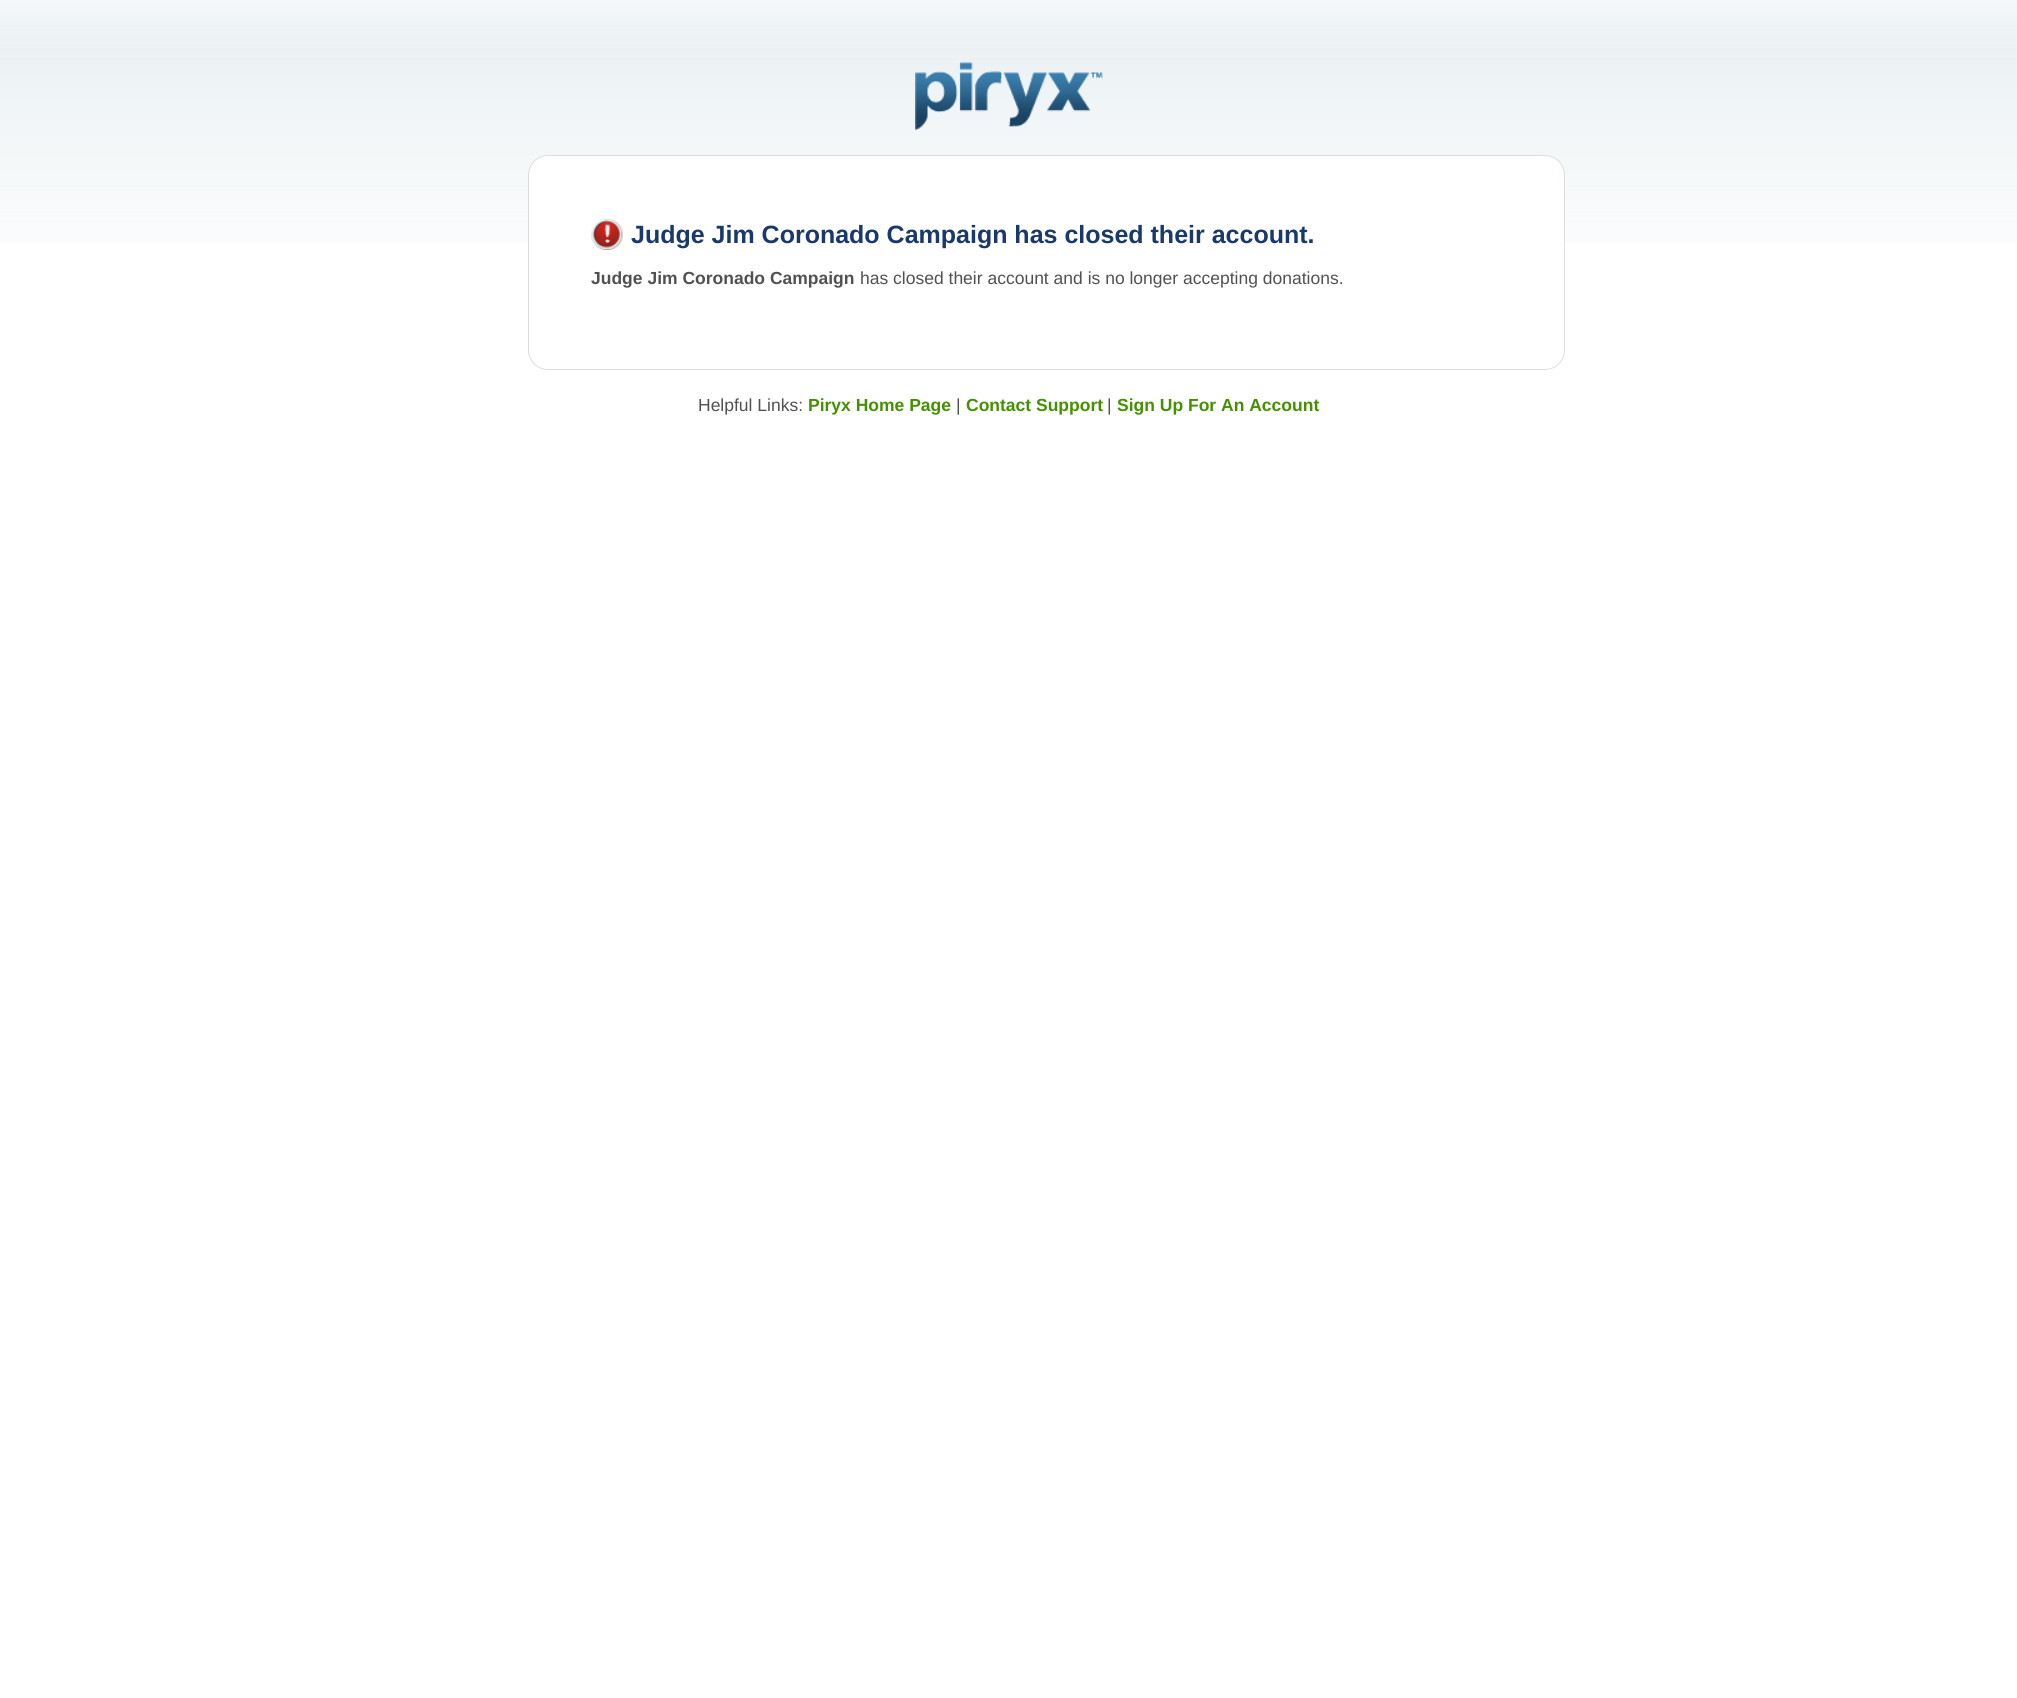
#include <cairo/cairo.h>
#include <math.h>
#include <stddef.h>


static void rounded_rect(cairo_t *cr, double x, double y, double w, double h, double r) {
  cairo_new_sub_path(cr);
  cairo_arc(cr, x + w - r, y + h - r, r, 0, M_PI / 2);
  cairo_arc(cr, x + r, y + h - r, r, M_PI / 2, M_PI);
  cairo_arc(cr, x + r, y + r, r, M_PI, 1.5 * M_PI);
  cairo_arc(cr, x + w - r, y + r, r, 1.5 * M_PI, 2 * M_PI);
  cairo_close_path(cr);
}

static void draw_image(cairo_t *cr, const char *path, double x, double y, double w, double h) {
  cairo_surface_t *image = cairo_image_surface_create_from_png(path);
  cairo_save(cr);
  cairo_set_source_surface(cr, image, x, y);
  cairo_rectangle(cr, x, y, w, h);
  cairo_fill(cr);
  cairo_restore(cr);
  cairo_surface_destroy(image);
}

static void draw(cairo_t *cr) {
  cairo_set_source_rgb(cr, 1, 1, 1);
  cairo_paint(cr);
  draw_image(cr, "images/1.png", 0, 0, 2017, 242);
  draw_image(cr, "images/2.png", 915, 62, 188, 68);
  cairo_set_source_rgb(cr, 1, 1, 1);
  rounded_rect(cr, 528.5, 155.5, 1036, 214, 19.5);
  cairo_fill_preserve(cr);
  cairo_set_source_rgb(cr, 221 / 255.0, 221 / 255.0, 221 / 255.0);
  cairo_set_line_width(cr, 1);
  cairo_stroke(cr);
  draw_image(cr, "images/3.png", 591, 218, 32, 32);
  cairo_select_font_face(cr, "Liberation Sans", CAIRO_FONT_SLANT_NORMAL, CAIRO_FONT_WEIGHT_BOLD);
  cairo_set_font_size(cr, 25);
  cairo_set_source_rgb(cr, 24 / 255.0, 57 / 255.0, 106 / 255.0);
  cairo_move_to(cr, 631, 243);
  cairo_show_text(cr, "Judge Jim Coronado Campaign has closed their account.");
  cairo_set_font_size(cr, 17.5);
  cairo_set_source_rgb(cr, 81 / 255.0, 81 / 255.0, 81 / 255.0);
  cairo_move_to(cr, 591, 284);
  cairo_show_text(cr, "Judge Jim Coronado Campaign");
  cairo_select_font_face(cr, "Liberation Sans", CAIRO_FONT_SLANT_NORMAL, CAIRO_FONT_WEIGHT_NORMAL);
  cairo_move_to(cr, 860, 284);
  cairo_show_text(cr, "has closed their account and is no longer accepting donations.");
  cairo_move_to(cr, 698, 411);
  cairo_show_text(cr, "Helpful Links:");
  cairo_select_font_face(cr, "Liberation Sans", CAIRO_FONT_SLANT_NORMAL, CAIRO_FONT_WEIGHT_BOLD);
  cairo_set_source_rgb(cr, 68 / 255.0, 145 / 255.0, 0);
  cairo_move_to(cr, 808, 411);
  cairo_show_text(cr, "Piryx Home Page");
  cairo_select_font_face(cr, "Liberation Sans", CAIRO_FONT_SLANT_NORMAL, CAIRO_FONT_WEIGHT_NORMAL);
  cairo_set_source_rgb(cr, 81 / 255.0, 81 / 255.0, 81 / 255.0);
  cairo_move_to(cr, 956, 411);
  cairo_show_text(cr, "|");
  cairo_select_font_face(cr, "Liberation Sans", CAIRO_FONT_SLANT_NORMAL, CAIRO_FONT_WEIGHT_BOLD);
  cairo_set_source_rgb(cr, 68 / 255.0, 145 / 255.0, 0);
  cairo_move_to(cr, 966, 411);
  cairo_show_text(cr, "Contact Support");
  cairo_select_font_face(cr, "Liberation Sans", CAIRO_FONT_SLANT_NORMAL, CAIRO_FONT_WEIGHT_NORMAL);
  cairo_set_source_rgb(cr, 81 / 255.0, 81 / 255.0, 81 / 255.0);
  cairo_move_to(cr, 1107, 411);
  cairo_show_text(cr, "|");
  cairo_select_font_face(cr, "Liberation Sans", CAIRO_FONT_SLANT_NORMAL, CAIRO_FONT_WEIGHT_BOLD);
  cairo_set_source_rgb(cr, 68 / 255.0, 145 / 255.0, 0);
  cairo_move_to(cr, 1117, 411);
  cairo_show_text(cr, "Sign Up For An Account");
}

int main(void) {
  cairo_surface_t *surface = cairo_image_surface_create(CAIRO_FORMAT_RGB24, 2017, 1698);
  cairo_t *cr = cairo_create(surface);
  cairo_font_options_t *options = cairo_font_options_create();
  cairo_font_options_set_hint_metrics(options, CAIRO_HINT_METRICS_OFF);
  cairo_font_options_set_hint_style(options, CAIRO_HINT_STYLE_NONE);
  cairo_set_font_options(cr, options);
  cairo_set_miter_limit(cr, 4);
  draw(cr);
  cairo_surface_write_to_png(surface, "out.png");
  cairo_font_options_destroy(options);
  cairo_destroy(cr);
  cairo_surface_destroy(surface);
  return 0;
}
